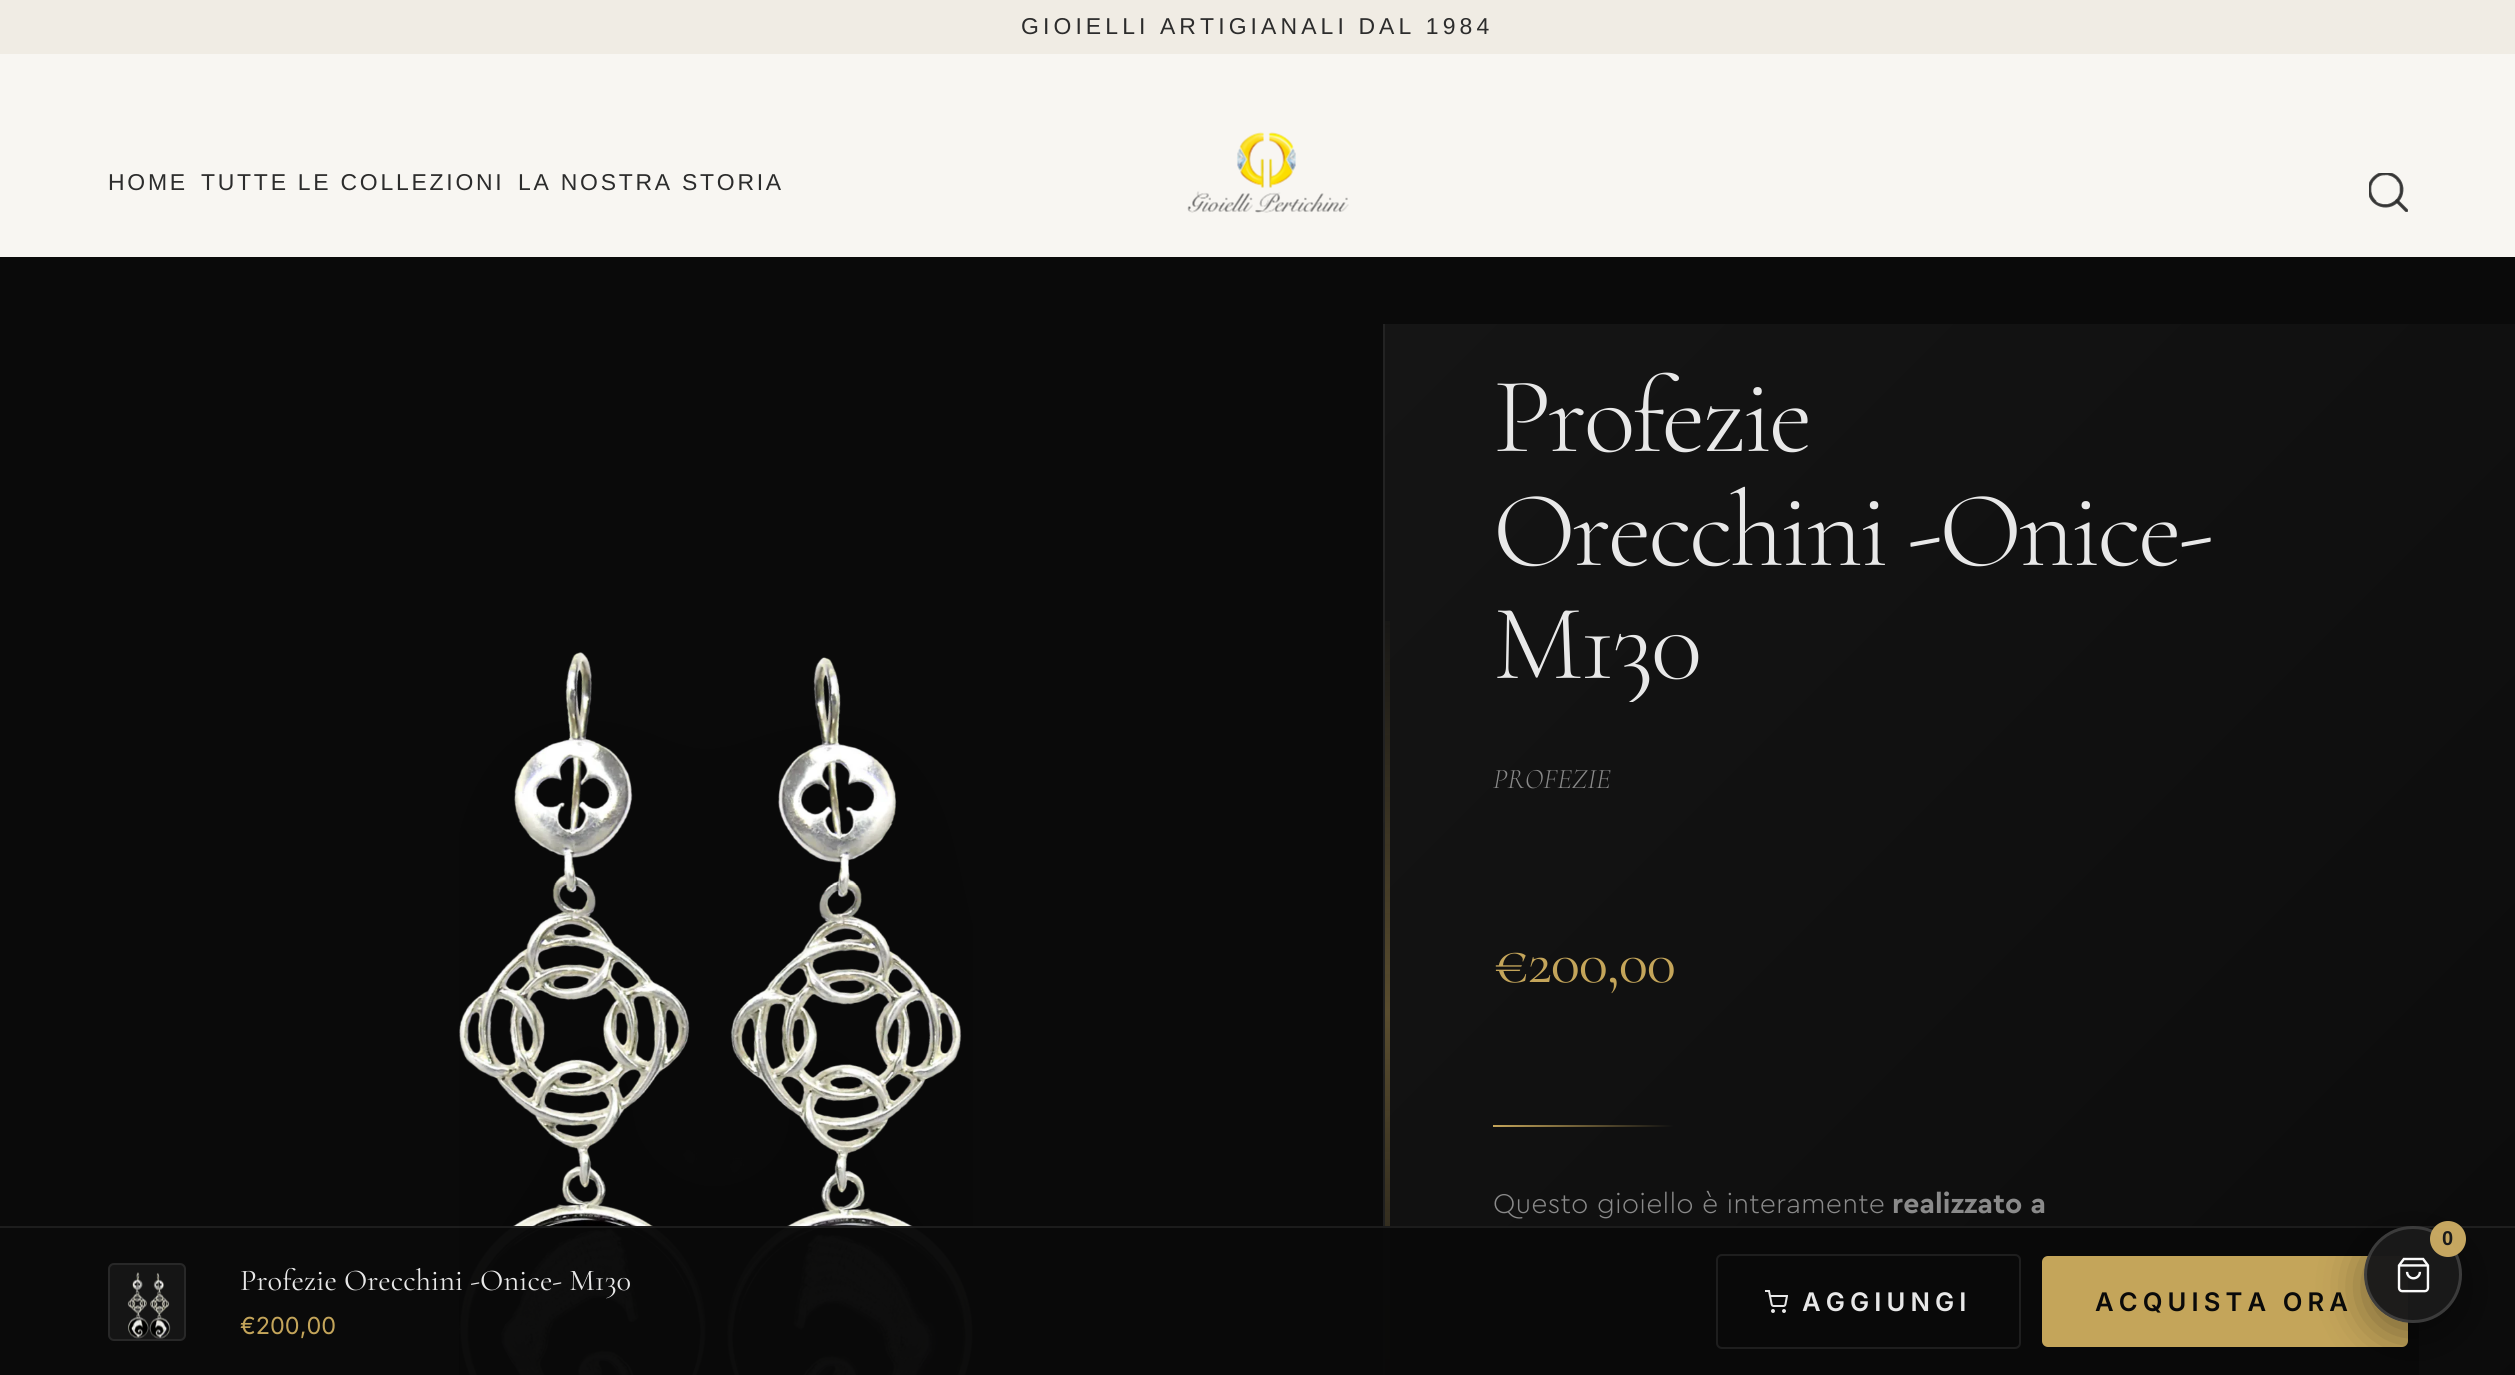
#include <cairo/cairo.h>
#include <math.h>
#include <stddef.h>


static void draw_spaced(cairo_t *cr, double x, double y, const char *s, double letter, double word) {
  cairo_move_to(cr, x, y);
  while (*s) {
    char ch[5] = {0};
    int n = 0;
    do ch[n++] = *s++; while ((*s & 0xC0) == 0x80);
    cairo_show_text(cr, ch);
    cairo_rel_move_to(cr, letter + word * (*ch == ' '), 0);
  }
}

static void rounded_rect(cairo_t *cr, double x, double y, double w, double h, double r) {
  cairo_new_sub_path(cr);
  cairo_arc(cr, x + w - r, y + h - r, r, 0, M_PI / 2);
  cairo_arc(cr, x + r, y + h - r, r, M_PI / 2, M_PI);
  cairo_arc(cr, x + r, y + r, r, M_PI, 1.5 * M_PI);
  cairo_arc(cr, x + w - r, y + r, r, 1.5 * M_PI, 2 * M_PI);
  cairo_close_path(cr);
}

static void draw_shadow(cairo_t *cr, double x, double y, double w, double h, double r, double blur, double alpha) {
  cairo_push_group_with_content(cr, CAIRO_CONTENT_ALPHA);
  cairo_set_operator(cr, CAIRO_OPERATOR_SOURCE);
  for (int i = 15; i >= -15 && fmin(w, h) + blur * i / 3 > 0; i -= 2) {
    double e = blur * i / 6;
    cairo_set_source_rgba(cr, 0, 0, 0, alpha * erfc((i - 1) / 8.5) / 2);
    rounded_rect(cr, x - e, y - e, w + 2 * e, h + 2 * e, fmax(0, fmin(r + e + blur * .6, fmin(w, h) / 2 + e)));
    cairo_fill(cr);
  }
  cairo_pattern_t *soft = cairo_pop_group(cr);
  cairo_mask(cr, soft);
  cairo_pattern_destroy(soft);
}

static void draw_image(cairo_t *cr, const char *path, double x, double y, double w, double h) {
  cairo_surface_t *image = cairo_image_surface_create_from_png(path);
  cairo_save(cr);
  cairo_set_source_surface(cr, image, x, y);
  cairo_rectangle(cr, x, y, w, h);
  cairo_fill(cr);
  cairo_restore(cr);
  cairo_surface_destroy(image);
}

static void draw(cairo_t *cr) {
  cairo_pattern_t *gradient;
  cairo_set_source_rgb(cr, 10 / 255.0, 10 / 255.0, 10 / 255.0);
  cairo_paint(cr);
  cairo_set_source_rgb(cr, 240 / 255.0, 236 / 255.0, 228 / 255.0);
  cairo_rectangle(cr, 0, 0, 2515, 54);
  cairo_fill(cr);
  cairo_set_source_rgb(cr, 248 / 255.0, 246 / 255.0, 242 / 255.0);
  cairo_rectangle(cr, 0, 54, 2515, 203);
  cairo_fill(cr);
  draw_image(cr, "images/1.png", 2369, 173, 39, 39);
  draw_image(cr, "images/2.png", 1187, 132, 162, 81);
  draw_image(cr, "images/3.png", 459, 652, 514, 723);
  gradient = cairo_pattern_create_linear(192, 385, 1446, 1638);
  cairo_pattern_add_color_stop_rgba(gradient, 0, 40 / 255.0, 40 / 255.0, 40 / 255.0, 1);
  cairo_pattern_add_color_stop_rgba(gradient, 1, 30 / 255.0, 30 / 255.0, 30 / 255.0, 1);
  cairo_set_source(cr, gradient);
  cairo_pattern_destroy(gradient);
  cairo_rectangle(cr, 1383, 324, 2, 1051);
  cairo_fill(cr);
  gradient = cairo_pattern_create_linear(1323, 385, 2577, 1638);
  cairo_pattern_add_color_stop_rgba(gradient, 0, 21 / 255.0, 21 / 255.0, 21 / 255.0, 1);
  cairo_pattern_add_color_stop_rgba(gradient, 1, 10 / 255.0, 10 / 255.0, 10 / 255.0, 1);
  cairo_set_source(cr, gradient);
  cairo_pattern_destroy(gradient);
  cairo_rectangle(cr, 1385, 324, 1130, 1051);
  cairo_fill(cr);
  gradient = cairo_pattern_create_linear(1387, 599, 1387, 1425);
  cairo_pattern_add_color_stop_rgba(gradient, 0, 196 / 255.0, 165 / 255.0, 90 / 255.0, 0);
  cairo_pattern_add_color_stop_rgba(gradient, 0.5, 196 / 255.0, 165 / 255.0, 90 / 255.0, 0.4);
  cairo_pattern_add_color_stop_rgba(gradient, 1, 196 / 255.0, 165 / 255.0, 90 / 255.0, 0);
  cairo_set_source(cr, gradient);
  cairo_pattern_destroy(gradient);
  cairo_rectangle(cr, 1385, 621, 5, 754);
  cairo_fill(cr);
  gradient = cairo_pattern_create_linear(1493, 1126, 1673, 1126);
  cairo_pattern_add_color_stop_rgba(gradient, 0, 196 / 255.0, 165 / 255.0, 90 / 255.0, 1);
  cairo_pattern_add_color_stop_rgba(gradient, 1, 17 / 255.0, 17 / 255.0, 17 / 255.0, 1);
  cairo_set_source(cr, gradient);
  cairo_pattern_destroy(gradient);
  cairo_rectangle(cr, 1493, 1125, 180, 2);
  cairo_fill(cr);
  cairo_set_source_rgba(cr, 10 / 255.0, 10 / 255.0, 10 / 255.0, 0.98);
  cairo_rectangle(cr, 460, 1226, 1959, 149);
  cairo_fill(cr);
  cairo_set_source_rgba(cr, 1, 1, 1, 0.08);
  cairo_rectangle(cr, 0, 1226, 2515, 2);
  cairo_fill(cr);
  cairo_set_source_rgb(cr, 21 / 255.0, 21 / 255.0, 21 / 255.0);
  rounded_rect(cr, 109, 1264, 76, 76, 5);
  cairo_fill_preserve(cr);
  cairo_set_source_rgb(cr, 40 / 255.0, 40 / 255.0, 40 / 255.0);
  cairo_stroke(cr);
  draw_image(cr, "images/4.png", 127, 1272, 44, 67);
  rounded_rect(cr, 1717, 1255, 303, 93, 5);
  cairo_set_source_rgb(cr, 30 / 255.0, 30 / 255.0, 30 / 255.0);
  cairo_stroke(cr);
  draw_image(cr, "images/5.png", 1765, 1290, 23, 23);
  cairo_set_source_rgb(cr, 196 / 255.0, 165 / 255.0, 90 / 255.0);
  rounded_rect(cr, 2042, 1256, 366, 91, 6);
  cairo_fill(cr);
  cairo_save(cr);
  cairo_set_fill_rule(cr, CAIRO_FILL_RULE_EVEN_ODD);
  cairo_new_path(cr);
  cairo_move_to(cr, 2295, 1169);
  cairo_line_to(cr, 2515, 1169);
  cairo_line_to(cr, 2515, 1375);
  cairo_line_to(cr, 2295, 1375);
  cairo_close_path(cr);
  cairo_move_to(cr, 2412.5, 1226);
  cairo_line_to(cr, 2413.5, 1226);
  cairo_curve_to(cr, 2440.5, 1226, 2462, 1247.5, 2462, 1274.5);
  cairo_curve_to(cr, 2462, 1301.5, 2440.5, 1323, 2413.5, 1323);
  cairo_line_to(cr, 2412.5, 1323);
  cairo_curve_to(cr, 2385.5, 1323, 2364, 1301.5, 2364, 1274.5);
  cairo_curve_to(cr, 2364, 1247.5, 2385.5, 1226, 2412.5, 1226);
  cairo_close_path(cr);
  cairo_clip(cr);
  cairo_set_source_rgb(cr, 0, 0, 0);
  draw_shadow(cr, 2364, 1238, 98, 97, 48.5, 22.5, 0.39);
  cairo_restore(cr);
  cairo_set_source_rgba(cr, 26 / 255.0, 26 / 255.0, 26 / 255.0, 0.98);
  rounded_rect(cr, 2364, 1226, 98, 97, 48.5);
  cairo_fill(cr);
  rounded_rect(cr, 2365.5, 1227.5, 95, 94, 47);
  cairo_set_source_rgba(cr, 1, 1, 1, 0.15);
  cairo_set_line_width(cr, 3);
  cairo_stroke(cr);
  cairo_set_source_rgba(cr, 201 / 255.0, 169 / 255.0, 98 / 255.0, 0.98);
  cairo_arc(cr, 2448, 1239, 18, 0, 2 * M_PI);
  cairo_fill(cr);
  draw_image(cr, "images/6.png", 2397, 1257, 33, 36);
  cairo_select_font_face(cr, "Liberation Sans", CAIRO_FONT_SLANT_NORMAL, CAIRO_FONT_WEIGHT_NORMAL);
  cairo_set_font_size(cr, 22.95);
  cairo_set_source_rgb(cr, 44 / 255.0, 44 / 255.0, 44 / 255.0);
  draw_spaced(cr, 1021, 34, "GIOIELLI ARTIGIANALI DAL 1984", 4.1, 0);
  draw_spaced(cr, 108, 190, "HOME", 2.75, 0);
  draw_spaced(cr, 201, 190, "TUTTE LE COLLEZIONI", 2.75, 0);
  draw_spaced(cr, 518, 190, "LA NOSTRA STORIA", 2.75, 0);
  cairo_select_font_face(cr, "Cormorant Garamond Light", CAIRO_FONT_SLANT_NORMAL, CAIRO_FONT_WEIGHT_NORMAL);
  cairo_set_font_size(cr, 108);
  cairo_set_source_rgb(cr, 232 / 255.0, 232 / 255.0, 232 / 255.0);
  draw_spaced(cr, 1493, 451, "Profezie", -3.25, 0);
  draw_spaced(cr, 1493, 565, "Orecchini -Onice-", -3.25, 0);
  cairo_save(cr);
  cairo_rectangle(cr, 1493, 362, 720, 340);
  cairo_clip(cr);
  draw_spaced(cr, 1493, 678, "M130", -3.25, 0);
  cairo_restore(cr);
  cairo_select_font_face(cr, "Cormorant Light", CAIRO_FONT_SLANT_ITALIC, CAIRO_FONT_WEIGHT_NORMAL);
  cairo_set_font_size(cr, 28.4);
  cairo_set_source_rgb(cr, 138 / 255.0, 138 / 255.0, 138 / 255.0);
  draw_spaced(cr, 1493, 788, "PROFEZIE", 0.15, 0);
  cairo_select_font_face(cr, "Cormorant Garamond", CAIRO_FONT_SLANT_NORMAL, CAIRO_FONT_WEIGHT_NORMAL);
  cairo_set_font_size(cr, 61);
  cairo_set_source_rgb(cr, 196 / 255.0, 165 / 255.0, 90 / 255.0);
  draw_spaced(cr, 1493, 982, "€200,00", -1.25, 0);
  cairo_select_font_face(cr, "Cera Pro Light", CAIRO_FONT_SLANT_NORMAL, CAIRO_FONT_WEIGHT_NORMAL);
  cairo_set_font_size(cr, 28.4);
  cairo_set_source_rgb(cr, 138 / 255.0, 138 / 255.0, 138 / 255.0);
  draw_spaced(cr, 1493, 1213, "Questo gioiello è interamente", 0.15, 0);
  cairo_select_font_face(cr, "Cera Pro", CAIRO_FONT_SLANT_NORMAL, CAIRO_FONT_WEIGHT_BOLD);
  draw_spaced(cr, 1892, 1213, "realizzato a", 0.15, 0);
  cairo_select_font_face(cr, "Cormorant Garamond", CAIRO_FONT_SLANT_NORMAL, CAIRO_FONT_WEIGHT_NORMAL);
  cairo_set_font_size(cr, 30.4);
  cairo_set_source_rgb(cr, 232 / 255.0, 232 / 255.0, 232 / 255.0);
  cairo_move_to(cr, 240, 1290);
  cairo_show_text(cr, "Profezie Orecchini -Onice- M130");
  cairo_select_font_face(cr, "Inter", CAIRO_FONT_SLANT_NORMAL, CAIRO_FONT_WEIGHT_NORMAL);
  cairo_set_font_size(cr, 23.5);
  cairo_set_source_rgb(cr, 196 / 255.0, 165 / 255.0, 90 / 255.0);
  cairo_move_to(cr, 240, 1334);
  cairo_show_text(cr, "€200,00");
  cairo_select_font_face(cr, "Inter SemiBold", CAIRO_FONT_SLANT_NORMAL, CAIRO_FONT_WEIGHT_NORMAL);
  cairo_set_font_size(cr, 25.6);
  cairo_set_source_rgb(cr, 232 / 255.0, 232 / 255.0, 232 / 255.0);
  draw_spaced(cr, 1802, 1311, "AGGIUNGI", 5.1, 0);
  cairo_set_source_rgb(cr, 10 / 255.0, 10 / 255.0, 10 / 255.0);
  draw_spaced(cr, 2095, 1311, "ACQUISTA ORA", 5.1, 0);
  cairo_select_font_face(cr, "Liberation Sans", CAIRO_FONT_SLANT_NORMAL, CAIRO_FONT_WEIGHT_BOLD);
  cairo_set_font_size(cr, 20);
  cairo_set_source_rgb(cr, 26 / 255.0, 26 / 255.0, 26 / 255.0);
  cairo_move_to(cr, 2442, 1245);
  cairo_show_text(cr, "0");
}

int main(void) {
  cairo_surface_t *surface = cairo_image_surface_create(CAIRO_FORMAT_RGB24, 2515, 1375);
  cairo_t *cr = cairo_create(surface);
  cairo_font_options_t *options = cairo_font_options_create();
  cairo_font_options_set_hint_metrics(options, CAIRO_HINT_METRICS_OFF);
  cairo_font_options_set_hint_style(options, CAIRO_HINT_STYLE_NONE);
  cairo_set_font_options(cr, options);
  cairo_set_miter_limit(cr, 4);
  draw(cr);
  cairo_surface_write_to_png(surface, "out.png");
  cairo_font_options_destroy(options);
  cairo_destroy(cr);
  cairo_surface_destroy(surface);
  return 0;
}
